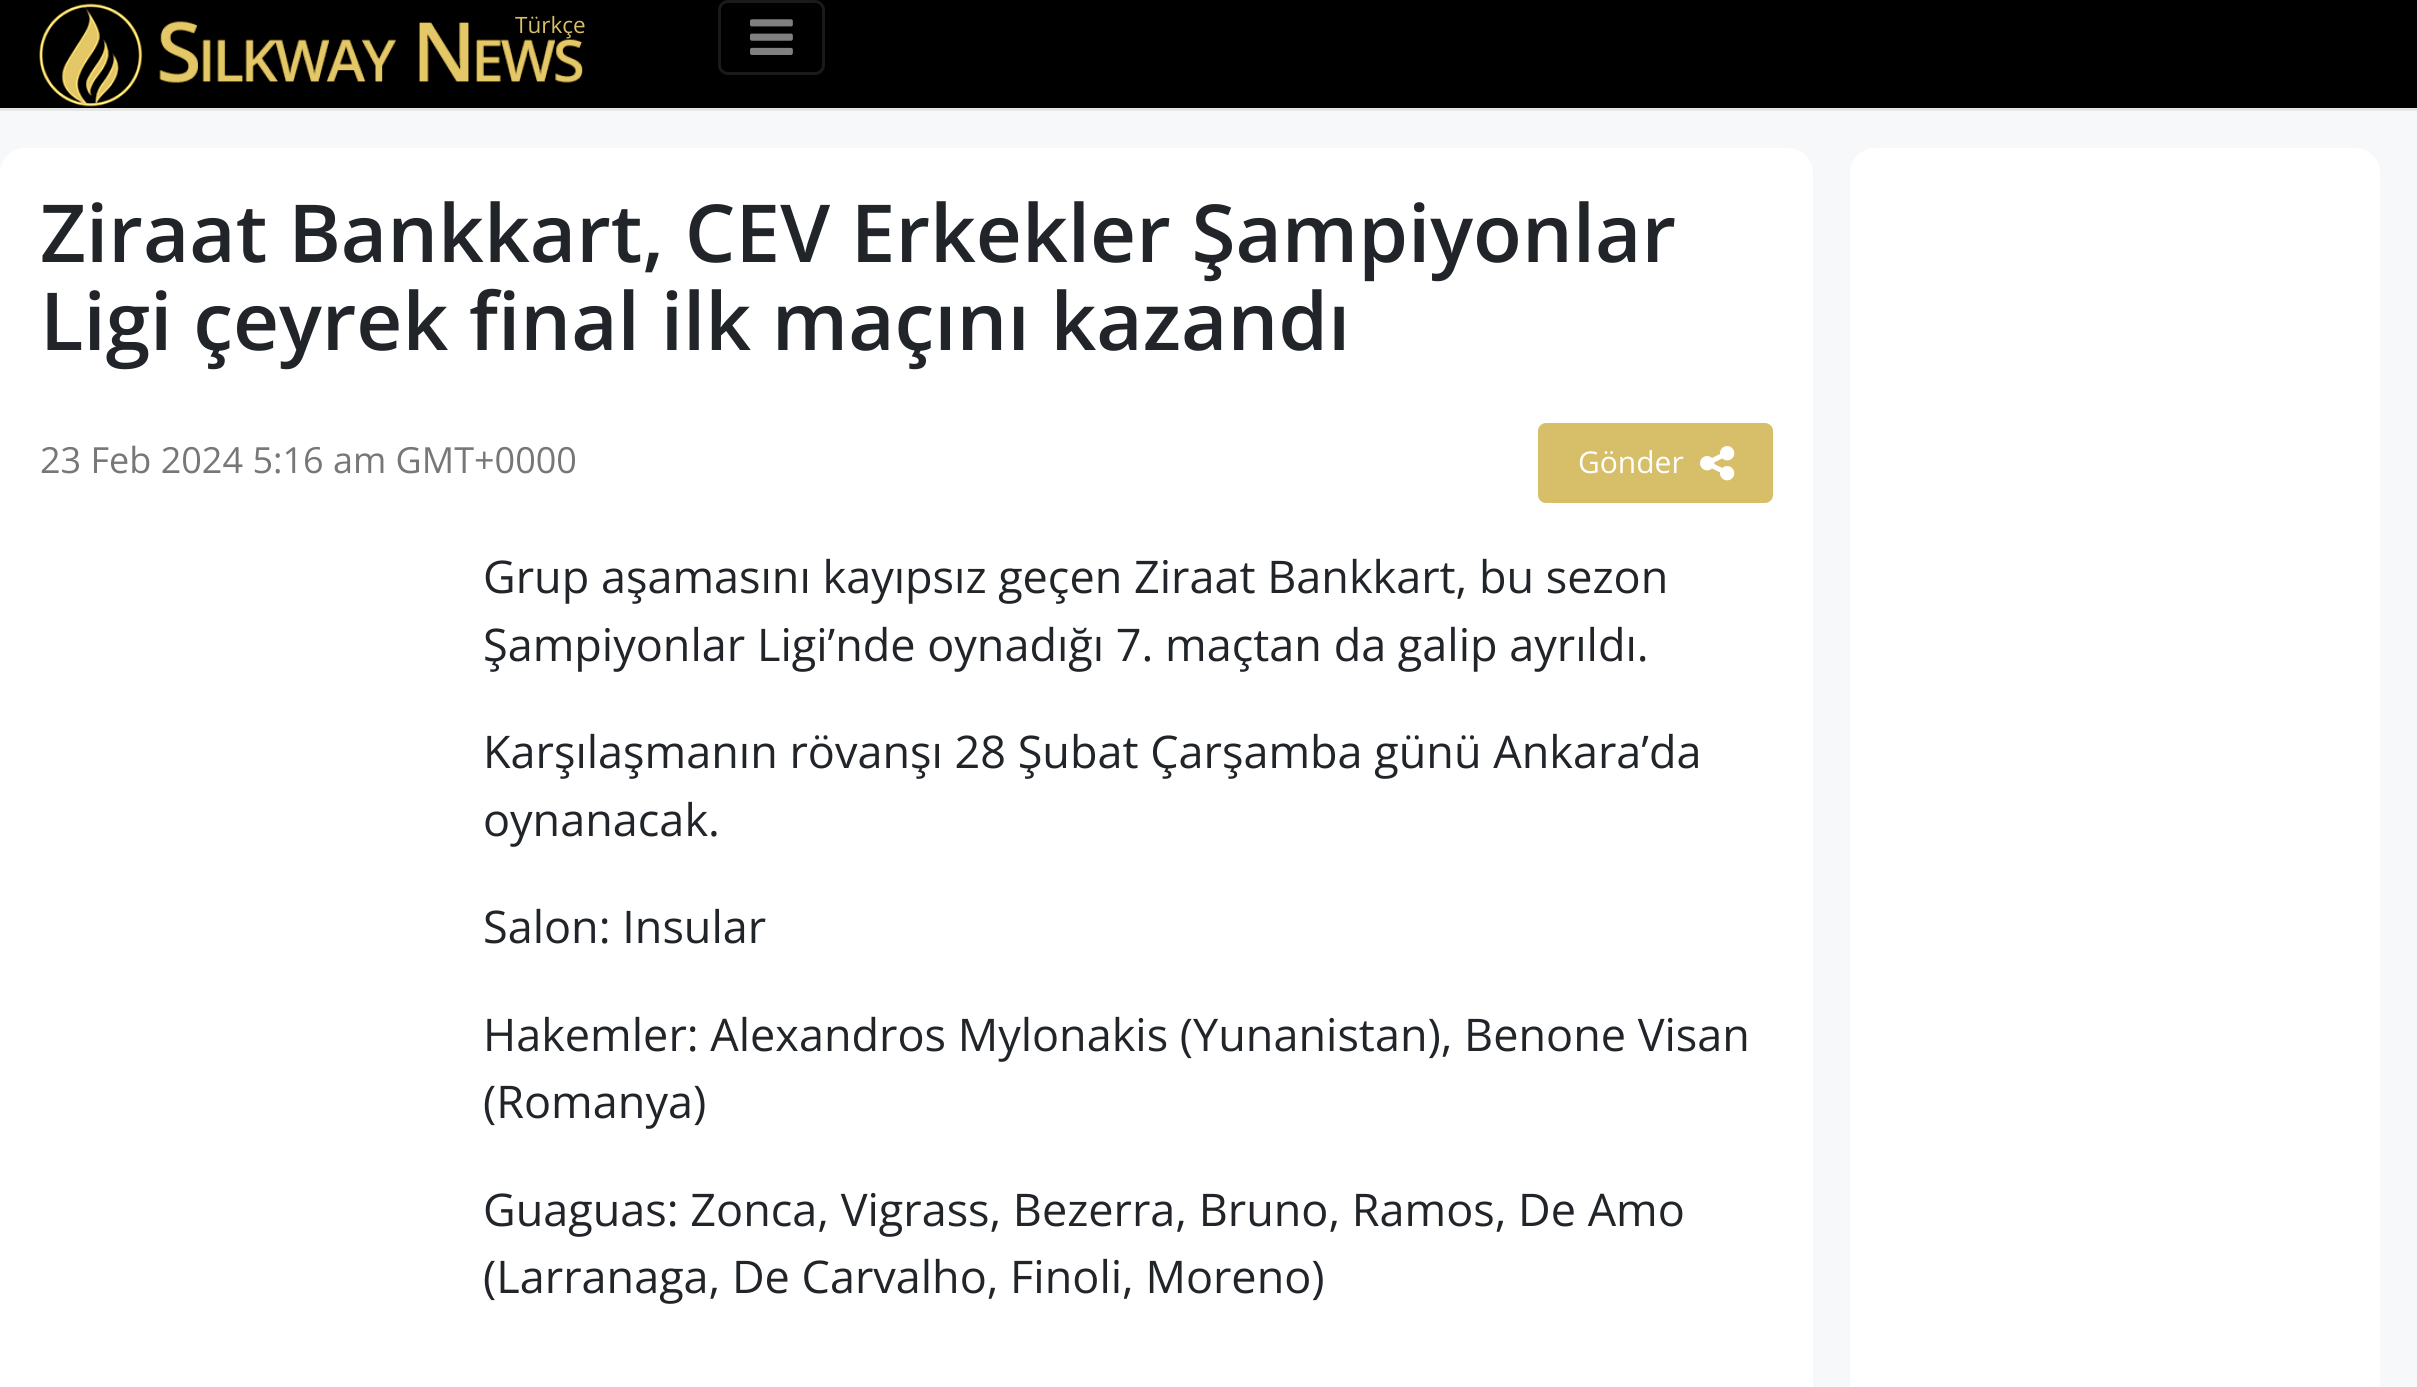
#include <cairo/cairo.h>
#include <math.h>
#include <stddef.h>


static void rounded_rect(cairo_t *cr, double x, double y, double w, double h, double r) {
  cairo_new_sub_path(cr);
  cairo_arc(cr, x + w - r, y + h - r, r, 0, M_PI / 2);
  cairo_arc(cr, x + r, y + h - r, r, M_PI / 2, M_PI);
  cairo_arc(cr, x + r, y + r, r, M_PI, 1.5 * M_PI);
  cairo_arc(cr, x + w - r, y + r, r, 1.5 * M_PI, 2 * M_PI);
  cairo_close_path(cr);
}

static void draw_image(cairo_t *cr, const char *path, double x, double y, double w, double h) {
  cairo_surface_t *image = cairo_image_surface_create_from_png(path);
  cairo_save(cr);
  cairo_set_source_surface(cr, image, x, y);
  cairo_rectangle(cr, x, y, w, h);
  cairo_fill(cr);
  cairo_restore(cr);
  cairo_surface_destroy(image);
}

static void draw(cairo_t *cr) {
  cairo_set_source_rgb(cr, 247 / 255.0, 248 / 255.0, 249 / 255.0);
  cairo_paint(cr);
  cairo_set_source_rgb(cr, 0, 0, 0);
  cairo_rectangle(cr, 0, 0, 2417, 108);
  cairo_fill(cr);
  cairo_set_source_rgb(cr, 229 / 255.0, 229 / 255.0, 229 / 255.0);
  cairo_rectangle(cr, 0, 108, 2417, 3);
  cairo_fill(cr);
  draw_image(cr, "images/1.png", 39, 3, 544, 104);
  rounded_rect(cr, 719.5, 1.5, 104, 72, 8.5);
  cairo_set_source_rgb(cr, 26 / 255.0, 26 / 255.0, 26 / 255.0);
  cairo_set_line_width(cr, 3);
  cairo_stroke(cr);
  draw_image(cr, "images/2.png", 750, 19, 43, 36);
  cairo_set_source_rgb(cr, 1, 1, 1);
  rounded_rect(cr, 0, 148, 1813, 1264, 25);
  cairo_fill(cr);
  cairo_set_source_rgb(cr, 215 / 255.0, 190 / 255.0, 105 / 255.0);
  rounded_rect(cr, 1538, 423, 235, 80, 8);
  cairo_fill(cr);
  draw_image(cr, "images/3.png", 1700, 446, 35, 35);
  cairo_set_source_rgb(cr, 1, 1, 1);
  rounded_rect(cr, 1850, 148, 530, 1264, 25);
  cairo_fill(cr);
  cairo_select_font_face(cr, "Open Sans", CAIRO_FONT_SLANT_NORMAL, CAIRO_FONT_WEIGHT_NORMAL);
  cairo_set_font_size(cr, 22.5);
  cairo_set_source_rgb(cr, 215 / 255.0, 190 / 255.0, 105 / 255.0);
  cairo_move_to(cr, 515, 33);
  cairo_show_text(cr, "Türkçe");
  cairo_select_font_face(cr, "Open Sans SemiBold", CAIRO_FONT_SLANT_NORMAL, CAIRO_FONT_WEIGHT_NORMAL);
  cairo_set_font_size(cr, 80);
  cairo_set_source_rgb(cr, 33 / 255.0, 37 / 255.0, 41 / 255.0);
  cairo_move_to(cr, 40, 262);
  cairo_show_text(cr, "Ziraat Bankkart, CEV Erkekler Şampiyonlar");
  cairo_move_to(cr, 40, 350);
  cairo_show_text(cr, "Ligi çeyrek final ilk maçını kazandı");
  cairo_select_font_face(cr, "Open Sans", CAIRO_FONT_SLANT_NORMAL, CAIRO_FONT_WEIGHT_NORMAL);
  cairo_set_font_size(cr, 36);
  cairo_set_source_rgb(cr, 119 / 255.0, 119 / 255.0, 119 / 255.0);
  cairo_move_to(cr, 40, 473);
  cairo_show_text(cr, "23 Feb 2024 5:16 am GMT+0000");
  cairo_set_font_size(cr, 30);
  cairo_set_source_rgb(cr, 1, 1, 1);
  cairo_move_to(cr, 1578, 473);
  cairo_show_text(cr, "Gönder");
  cairo_set_font_size(cr, 45);
  cairo_set_source_rgb(cr, 33 / 255.0, 37 / 255.0, 41 / 255.0);
  cairo_move_to(cr, 483, 593);
  cairo_show_text(cr, "Grup aşamasını kayıpsız geçen Ziraat Bankkart, bu sezon");
  cairo_move_to(cr, 483, 661);
  cairo_show_text(cr, "Şampiyonlar Ligi’nde oynadığı 7. maçtan da galip ayrıldı.");
  cairo_move_to(cr, 483, 768);
  cairo_show_text(cr, "Karşılaşmanın rövanşı 28 Şubat Çarşamba günü Ankara’da");
  cairo_move_to(cr, 483, 836);
  cairo_show_text(cr, "oynanacak.");
  cairo_move_to(cr, 483, 943);
  cairo_show_text(cr, "Salon: Insular");
  cairo_move_to(cr, 483, 1051);
  cairo_show_text(cr, "Hakemler: Alexandros Mylonakis (Yunanistan), Benone Visan");
  cairo_move_to(cr, 483, 1118);
  cairo_show_text(cr, "(Romanya)");
  cairo_move_to(cr, 483, 1226);
  cairo_show_text(cr, "Guaguas: Zonca, Vigrass, Bezerra, Bruno, Ramos, De Amo");
  cairo_move_to(cr, 483, 1293);
  cairo_show_text(cr, "(Larranaga, De Carvalho, Finoli, Moreno)");
}

int main(void) {
  cairo_surface_t *surface = cairo_image_surface_create(CAIRO_FORMAT_RGB24, 2417, 1387);
  cairo_t *cr = cairo_create(surface);
  cairo_font_options_t *options = cairo_font_options_create();
  cairo_font_options_set_hint_metrics(options, CAIRO_HINT_METRICS_OFF);
  cairo_font_options_set_hint_style(options, CAIRO_HINT_STYLE_NONE);
  cairo_set_font_options(cr, options);
  cairo_set_miter_limit(cr, 4);
  draw(cr);
  cairo_surface_write_to_png(surface, "out.png");
  cairo_font_options_destroy(options);
  cairo_destroy(cr);
  cairo_surface_destroy(surface);
  return 0;
}
